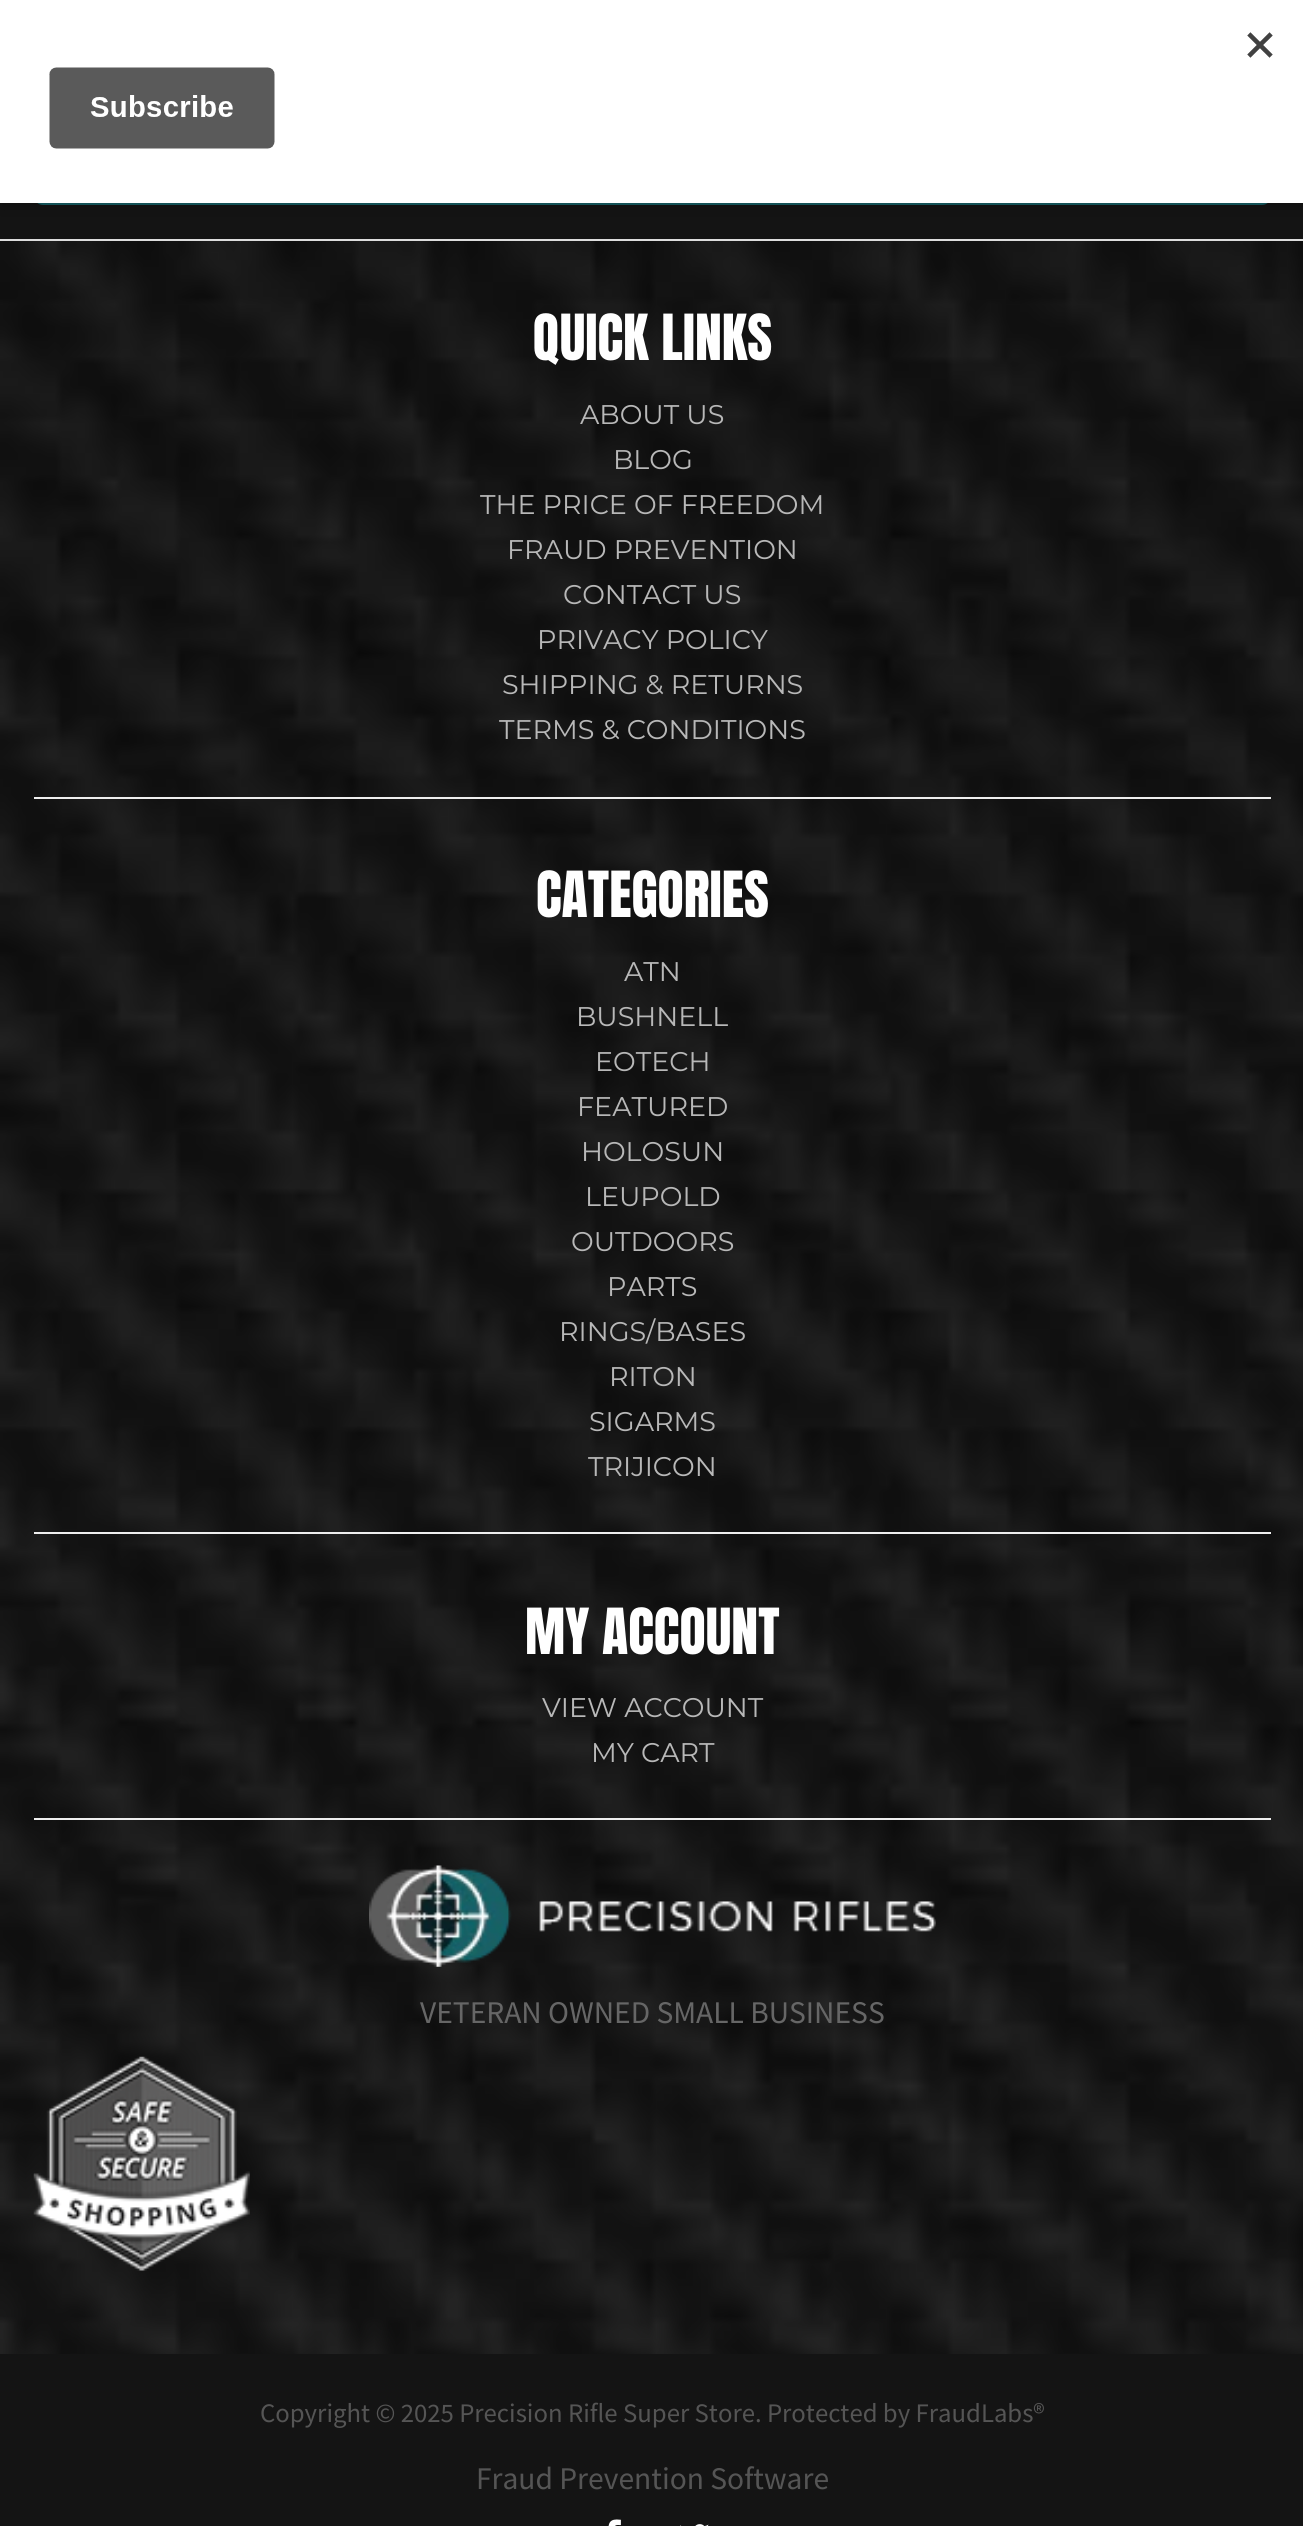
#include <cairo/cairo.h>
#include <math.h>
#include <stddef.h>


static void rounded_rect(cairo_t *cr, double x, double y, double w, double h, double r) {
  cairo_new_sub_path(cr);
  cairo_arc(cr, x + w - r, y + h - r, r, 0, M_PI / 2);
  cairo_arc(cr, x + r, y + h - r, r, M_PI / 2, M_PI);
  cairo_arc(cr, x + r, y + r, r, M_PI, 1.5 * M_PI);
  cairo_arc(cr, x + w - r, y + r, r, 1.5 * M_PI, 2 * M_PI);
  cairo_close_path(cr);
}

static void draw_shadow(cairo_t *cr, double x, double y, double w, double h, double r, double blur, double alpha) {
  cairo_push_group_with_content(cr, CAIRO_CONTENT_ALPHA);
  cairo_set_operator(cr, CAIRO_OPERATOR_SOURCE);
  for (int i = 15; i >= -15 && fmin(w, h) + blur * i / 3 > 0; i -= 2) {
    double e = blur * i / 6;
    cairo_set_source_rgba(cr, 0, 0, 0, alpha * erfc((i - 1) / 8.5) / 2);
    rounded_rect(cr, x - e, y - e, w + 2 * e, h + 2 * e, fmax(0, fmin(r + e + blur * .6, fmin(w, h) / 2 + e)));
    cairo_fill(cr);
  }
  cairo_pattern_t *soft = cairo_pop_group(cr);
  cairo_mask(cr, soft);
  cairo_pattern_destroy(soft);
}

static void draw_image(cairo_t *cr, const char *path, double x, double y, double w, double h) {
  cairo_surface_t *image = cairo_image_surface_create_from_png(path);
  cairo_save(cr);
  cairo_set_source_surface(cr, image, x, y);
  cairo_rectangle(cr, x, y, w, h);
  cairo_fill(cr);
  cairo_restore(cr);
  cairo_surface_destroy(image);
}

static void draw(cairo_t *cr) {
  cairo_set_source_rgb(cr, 20 / 255.0, 20 / 255.0, 20 / 255.0);
  cairo_paint(cr);
  cairo_set_source_rgb(cr, 24 / 255.0, 97 / 255.0, 103 / 255.0);
  rounded_rect(cr, 34, 128, 1237, 77, 9);
  cairo_fill(cr);
  cairo_set_source_rgb(cr, 0, 0, 0);
  draw_shadow(cr, 0, 7, 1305, 202, 0, 7, 0.2);
  cairo_set_source_rgb(cr, 1, 1, 1);
  cairo_rectangle(cr, 0, 0, 1303, 203);
  cairo_fill(cr);
  draw_image(cr, "images/1.png", 49, 32, 1224, 117);
  cairo_set_source_rgb(cr, 221 / 255.0, 221 / 255.0, 221 / 255.0);
  cairo_rectangle(cr, 0, 239, 1303, 2);
  cairo_fill(cr);
  draw_image(cr, "images/2.png", 0, 241, 1303, 2113);
  cairo_set_source_rgb(cr, 238 / 255.0, 238 / 255.0, 238 / 255.0);
  cairo_rectangle(cr, 34, 797, 1237, 2);
  cairo_fill(cr);
  cairo_rectangle(cr, 34, 1532, 1237, 2);
  cairo_fill(cr);
  cairo_rectangle(cr, 34, 1818, 1237, 2);
  cairo_fill(cr);
  draw_image(cr, "images/3.png", 369, 1865, 567, 102);
  draw_image(cr, "images/4.png", 33, 2056, 217, 215);
  draw_image(cr, "images/5.png", 608, 2519, 13, 7);
  draw_image(cr, "images/6.png", 680, 2524, 29, 2);
  cairo_select_font_face(cr, "Anton", CAIRO_FONT_SLANT_NORMAL, CAIRO_FONT_WEIGHT_NORMAL);
  cairo_set_font_size(cr, 54);
  cairo_set_source_rgb(cr, 1, 1, 1);
  cairo_move_to(cr, 533, 360);
  cairo_show_text(cr, "QUICK LINKS");
  cairo_select_font_face(cr, "Montserrat", CAIRO_FONT_SLANT_NORMAL, CAIRO_FONT_WEIGHT_NORMAL);
  cairo_set_font_size(cr, 27);
  cairo_set_source_rgb(cr, 184 / 255.0, 184 / 255.0, 184 / 255.0);
  cairo_move_to(cr, 580, 424);
  cairo_show_text(cr, "ABOUT US");
  cairo_move_to(cr, 613, 469);
  cairo_show_text(cr, "BLOG");
  cairo_move_to(cr, 480, 514);
  cairo_show_text(cr, "THE PRICE OF FREEDOM");
  cairo_move_to(cr, 507, 559);
  cairo_show_text(cr, "FRAUD PREVENTION");
  cairo_move_to(cr, 563, 604);
  cairo_show_text(cr, "CONTACT US");
  cairo_move_to(cr, 537, 649);
  cairo_show_text(cr, "PRIVACY POLICY");
  cairo_move_to(cr, 502, 694);
  cairo_show_text(cr, "SHIPPING & RETURNS");
  cairo_move_to(cr, 499, 739);
  cairo_show_text(cr, "TERMS & CONDITIONS");
  cairo_select_font_face(cr, "Anton", CAIRO_FONT_SLANT_NORMAL, CAIRO_FONT_WEIGHT_NORMAL);
  cairo_set_font_size(cr, 54);
  cairo_set_source_rgb(cr, 1, 1, 1);
  cairo_move_to(cr, 536, 917);
  cairo_show_text(cr, "CATEGORIES");
  cairo_select_font_face(cr, "Montserrat", CAIRO_FONT_SLANT_NORMAL, CAIRO_FONT_WEIGHT_NORMAL);
  cairo_set_font_size(cr, 27);
  cairo_set_source_rgb(cr, 184 / 255.0, 184 / 255.0, 184 / 255.0);
  cairo_move_to(cr, 624, 981);
  cairo_show_text(cr, "ATN");
  cairo_move_to(cr, 576, 1026);
  cairo_show_text(cr, "BUSHNELL");
  cairo_move_to(cr, 595, 1071);
  cairo_show_text(cr, "EOTECH");
  cairo_move_to(cr, 577, 1116);
  cairo_show_text(cr, "FEATURED");
  cairo_move_to(cr, 581, 1161);
  cairo_show_text(cr, "HOLOSUN");
  cairo_move_to(cr, 585, 1206);
  cairo_show_text(cr, "LEUPOLD");
  cairo_move_to(cr, 571, 1251);
  cairo_show_text(cr, "OUTDOORS");
  cairo_move_to(cr, 607, 1296);
  cairo_show_text(cr, "PARTS");
  cairo_move_to(cr, 559, 1341);
  cairo_show_text(cr, "RINGS/BASES");
  cairo_move_to(cr, 609, 1386);
  cairo_show_text(cr, "RITON");
  cairo_move_to(cr, 589, 1431);
  cairo_show_text(cr, "SIGARMS");
  cairo_move_to(cr, 588, 1476);
  cairo_show_text(cr, "TRIJICON");
  cairo_select_font_face(cr, "Anton", CAIRO_FONT_SLANT_NORMAL, CAIRO_FONT_WEIGHT_NORMAL);
  cairo_set_font_size(cr, 54);
  cairo_set_source_rgb(cr, 1, 1, 1);
  cairo_move_to(cr, 525, 1654);
  cairo_show_text(cr, "MY ACCOUNT");
  cairo_select_font_face(cr, "Montserrat", CAIRO_FONT_SLANT_NORMAL, CAIRO_FONT_WEIGHT_NORMAL);
  cairo_set_font_size(cr, 27);
  cairo_set_source_rgb(cr, 184 / 255.0, 184 / 255.0, 184 / 255.0);
  cairo_move_to(cr, 542, 1717);
  cairo_show_text(cr, "VIEW ACCOUNT");
  cairo_move_to(cr, 591, 1762);
  cairo_show_text(cr, "MY CART");
  cairo_select_font_face(cr, "Source Sans Pro", CAIRO_FONT_SLANT_NORMAL, CAIRO_FONT_WEIGHT_NORMAL);
  cairo_set_font_size(cr, 31.5);
  cairo_set_source_rgb(cr, 102 / 255.0, 102 / 255.0, 102 / 255.0);
  cairo_move_to(cr, 420, 2023);
  cairo_show_text(cr, "VETERAN OWNED SMALL BUSINESS");
  cairo_set_font_size(cr, 26.75);
  cairo_set_source_rgb(cr, 85 / 255.0, 85 / 255.0, 85 / 255.0);
  cairo_move_to(cr, 260, 2422);
  cairo_show_text(cr, "Copyright © 2025 Precision Rifle Super Store. Protected by FraudLabs®");
  cairo_set_font_size(cr, 31.5);
  cairo_move_to(cr, 476, 2489);
  cairo_show_text(cr, "Fraud Prevention Software");
}

int main(void) {
  cairo_surface_t *surface = cairo_image_surface_create(CAIRO_FORMAT_RGB24, 1303, 2526);
  cairo_t *cr = cairo_create(surface);
  cairo_font_options_t *options = cairo_font_options_create();
  cairo_font_options_set_hint_metrics(options, CAIRO_HINT_METRICS_OFF);
  cairo_font_options_set_hint_style(options, CAIRO_HINT_STYLE_NONE);
  cairo_set_font_options(cr, options);
  cairo_set_miter_limit(cr, 4);
  draw(cr);
  cairo_surface_write_to_png(surface, "out.png");
  cairo_font_options_destroy(options);
  cairo_destroy(cr);
  cairo_surface_destroy(surface);
  return 0;
}
